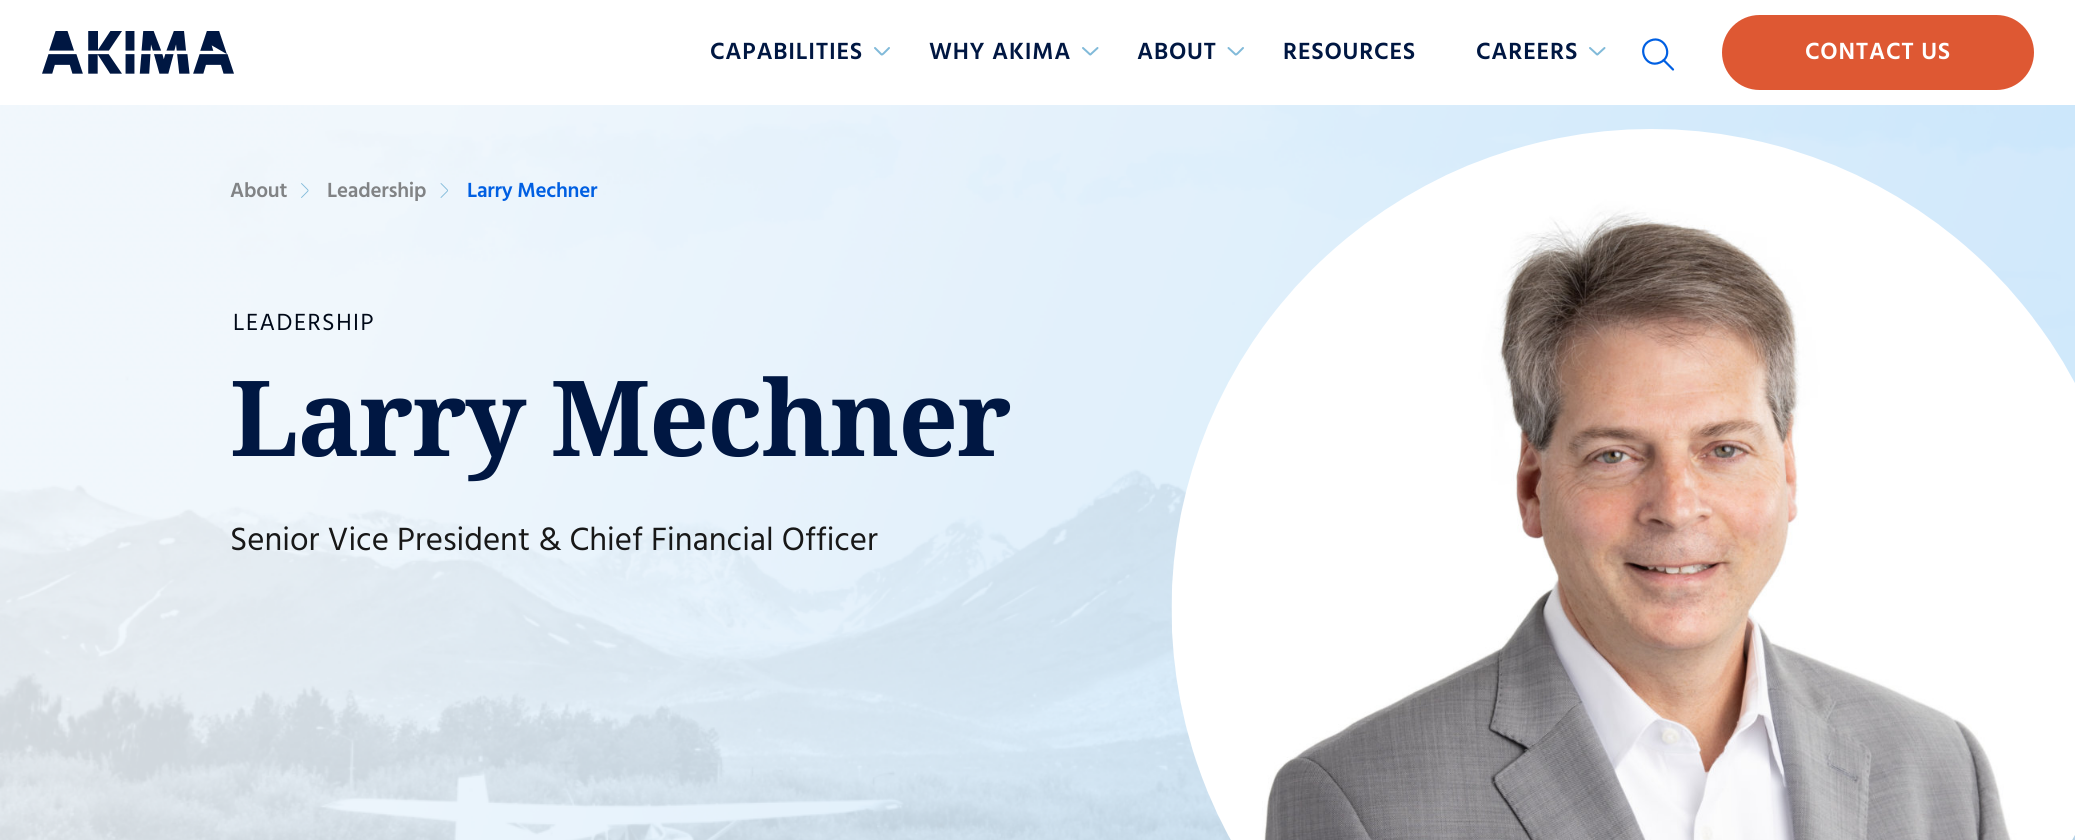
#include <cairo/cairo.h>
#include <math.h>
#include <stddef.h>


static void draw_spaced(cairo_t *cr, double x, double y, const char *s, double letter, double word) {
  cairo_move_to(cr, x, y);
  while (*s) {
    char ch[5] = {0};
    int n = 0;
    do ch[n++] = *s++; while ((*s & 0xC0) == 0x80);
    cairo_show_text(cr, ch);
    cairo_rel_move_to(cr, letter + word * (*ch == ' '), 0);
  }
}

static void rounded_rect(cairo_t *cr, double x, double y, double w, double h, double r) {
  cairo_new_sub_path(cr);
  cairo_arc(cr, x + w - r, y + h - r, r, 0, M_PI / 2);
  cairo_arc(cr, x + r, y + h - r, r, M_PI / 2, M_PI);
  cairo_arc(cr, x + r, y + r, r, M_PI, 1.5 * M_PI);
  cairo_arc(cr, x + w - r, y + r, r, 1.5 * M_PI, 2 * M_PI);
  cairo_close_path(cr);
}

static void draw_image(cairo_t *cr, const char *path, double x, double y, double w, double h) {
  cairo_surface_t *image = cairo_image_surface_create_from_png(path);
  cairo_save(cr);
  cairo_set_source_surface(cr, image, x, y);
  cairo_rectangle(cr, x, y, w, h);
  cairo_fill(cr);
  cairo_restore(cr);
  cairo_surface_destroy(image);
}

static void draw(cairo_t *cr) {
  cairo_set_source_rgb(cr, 1, 1, 1);
  cairo_paint(cr);
  draw_image(cr, "images/1.png", 42, 31, 192, 43);
  cairo_new_path(cr);
  cairo_move_to(cr, 889, 48);
  cairo_line_to(cr, 883.5, 53.5);
  cairo_curve_to(cr, 881.5, 55, 882, 55, 880.5, 53.5);
  cairo_line_to(cr, 875, 48);
  cairo_set_source_rgb(cr, 129 / 255.0, 186 / 255.0, 217 / 255.0);
  cairo_set_line_cap(cr, CAIRO_LINE_CAP_ROUND);
  cairo_set_line_join(cr, CAIRO_LINE_JOIN_ROUND);
  cairo_stroke(cr);
  cairo_new_path(cr);
  cairo_move_to(cr, 1097.5, 48);
  cairo_line_to(cr, 1091.5, 53.5);
  cairo_curve_to(cr, 1090, 55, 1090.5, 55, 1089, 53.5);
  cairo_line_to(cr, 1083, 48);
  cairo_stroke(cr);
  cairo_new_path(cr);
  cairo_move_to(cr, 1243, 48);
  cairo_line_to(cr, 1237.5, 53.5);
  cairo_curve_to(cr, 1235.5, 55, 1236, 55, 1234.5, 53.5);
  cairo_line_to(cr, 1228.5, 48);
  cairo_stroke(cr);
  cairo_new_path(cr);
  cairo_move_to(cr, 1604.5, 48);
  cairo_line_to(cr, 1598.5, 53.5);
  cairo_curve_to(cr, 1597, 55, 1597.5, 55, 1596, 53.5);
  cairo_line_to(cr, 1590, 48);
  cairo_stroke(cr);
  cairo_new_path(cr);
  cairo_move_to(cr, 1660, 62.5);
  cairo_curve_to(cr, 1674.5, 56.5, 1665, 34.5, 1650.5, 40.5);
  cairo_curve_to(cr, 1636, 46.5, 1645, 69, 1660, 62.5);
  cairo_close_path(cr);
  cairo_move_to(cr, 1663.5, 60);
  cairo_line_to(cr, 1673, 69.5);
  cairo_set_source_rgb(cr, 0, 95 / 255.0, 226 / 255.0);
  cairo_set_line_width(cr, 2.2);
  cairo_stroke(cr);
  cairo_set_source_rgb(cr, 222 / 255.0, 88 / 255.0, 51 / 255.0);
  rounded_rect(cr, 1722, 15, 312, 75, 37.5);
  cairo_fill(cr);
  draw_image(cr, "images/2.png", 0, 105, 2075, 735);
  cairo_new_path(cr);
  cairo_move_to(cr, 301.5, 183.5);
  cairo_line_to(cr, 307, 189);
  cairo_curve_to(cr, 308.5, 190.5, 308.5, 190.5, 307, 192);
  cairo_line_to(cr, 301.5, 197.5);
  cairo_set_source_rgb(cr, 129 / 255.0, 186 / 255.0, 217 / 255.0);
  cairo_set_line_width(cr, 0.9);
  cairo_stroke(cr);
  cairo_new_path(cr);
  cairo_move_to(cr, 441, 183.5);
  cairo_line_to(cr, 446.5, 189);
  cairo_curve_to(cr, 448, 190.5, 448, 190.5, 446.5, 192);
  cairo_line_to(cr, 441, 197.5);
  cairo_stroke(cr);
  draw_image(cr, "images/3.png", 1171, 129, 904, 711);
  cairo_select_font_face(cr, "Hind SemiBold", CAIRO_FONT_SLANT_NORMAL, CAIRO_FONT_WEIGHT_NORMAL);
  cairo_set_font_size(cr, 24);
  cairo_set_source_rgb(cr, 0, 23 / 255.0, 66 / 255.0);
  draw_spaced(cr, 710, 59, "CAPABILITIES", 0.75, 0);
  draw_spaced(cr, 929, 59, "WHY AKIMA", 0.75, 0);
  draw_spaced(cr, 1137, 59, "ABOUT", 0.75, 0);
  draw_spaced(cr, 1283, 59, "RESOURCES", 0.75, 0);
  draw_spaced(cr, 1476, 59, "CAREERS", 0.75, 0);
  cairo_set_source_rgb(cr, 1, 1, 1);
  draw_spaced(cr, 1805, 59, "CONTACT US", 0.75, 0);
  cairo_set_font_size(cr, 21);
  cairo_set_source_rgb(cr, 129 / 255.0, 131 / 255.0, 133 / 255.0);
  draw_spaced(cr, 230, 197, "About", -0.25, 0);
  draw_spaced(cr, 327, 197, "Leadership", -0.25, 0);
  cairo_set_source_rgb(cr, 0, 95 / 255.0, 226 / 255.0);
  draw_spaced(cr, 467, 197, "Larry Mechner", -0.25, 0);
  cairo_select_font_face(cr, "Hind", CAIRO_FONT_SLANT_NORMAL, CAIRO_FONT_WEIGHT_NORMAL);
  cairo_set_font_size(cr, 24);
  cairo_set_source_rgb(cr, 0, 9 / 255.0, 24 / 255.0);
  draw_spaced(cr, 233, 330, "LEADERSHIP", 1.5, 0);
  cairo_select_font_face(cr, "Noto Serif", CAIRO_FONT_SLANT_NORMAL, CAIRO_FONT_WEIGHT_BOLD);
  cairo_set_font_size(cr, 105);
  cairo_set_source_rgb(cr, 0, 23 / 255.0, 66 / 255.0);
  draw_spaced(cr, 230, 456, "Larry Mechner", -1.5, 0);
  cairo_select_font_face(cr, "Hind", CAIRO_FONT_SLANT_NORMAL, CAIRO_FONT_WEIGHT_NORMAL);
  cairo_set_font_size(cr, 33);
  cairo_set_source_rgb(cr, 24 / 255.0, 24 / 255.0, 24 / 255.0);
  cairo_move_to(cr, 230, 550);
  cairo_show_text(cr, "Senior Vice President & Chief Financial Officer");
}

int main(void) {
  cairo_surface_t *surface = cairo_image_surface_create(CAIRO_FORMAT_RGB24, 2075, 840);
  cairo_t *cr = cairo_create(surface);
  cairo_font_options_t *options = cairo_font_options_create();
  cairo_font_options_set_hint_metrics(options, CAIRO_HINT_METRICS_OFF);
  cairo_font_options_set_hint_style(options, CAIRO_HINT_STYLE_NONE);
  cairo_set_font_options(cr, options);
  cairo_set_miter_limit(cr, 4);
  draw(cr);
  cairo_surface_write_to_png(surface, "out.png");
  cairo_font_options_destroy(options);
  cairo_destroy(cr);
  cairo_surface_destroy(surface);
  return 0;
}
